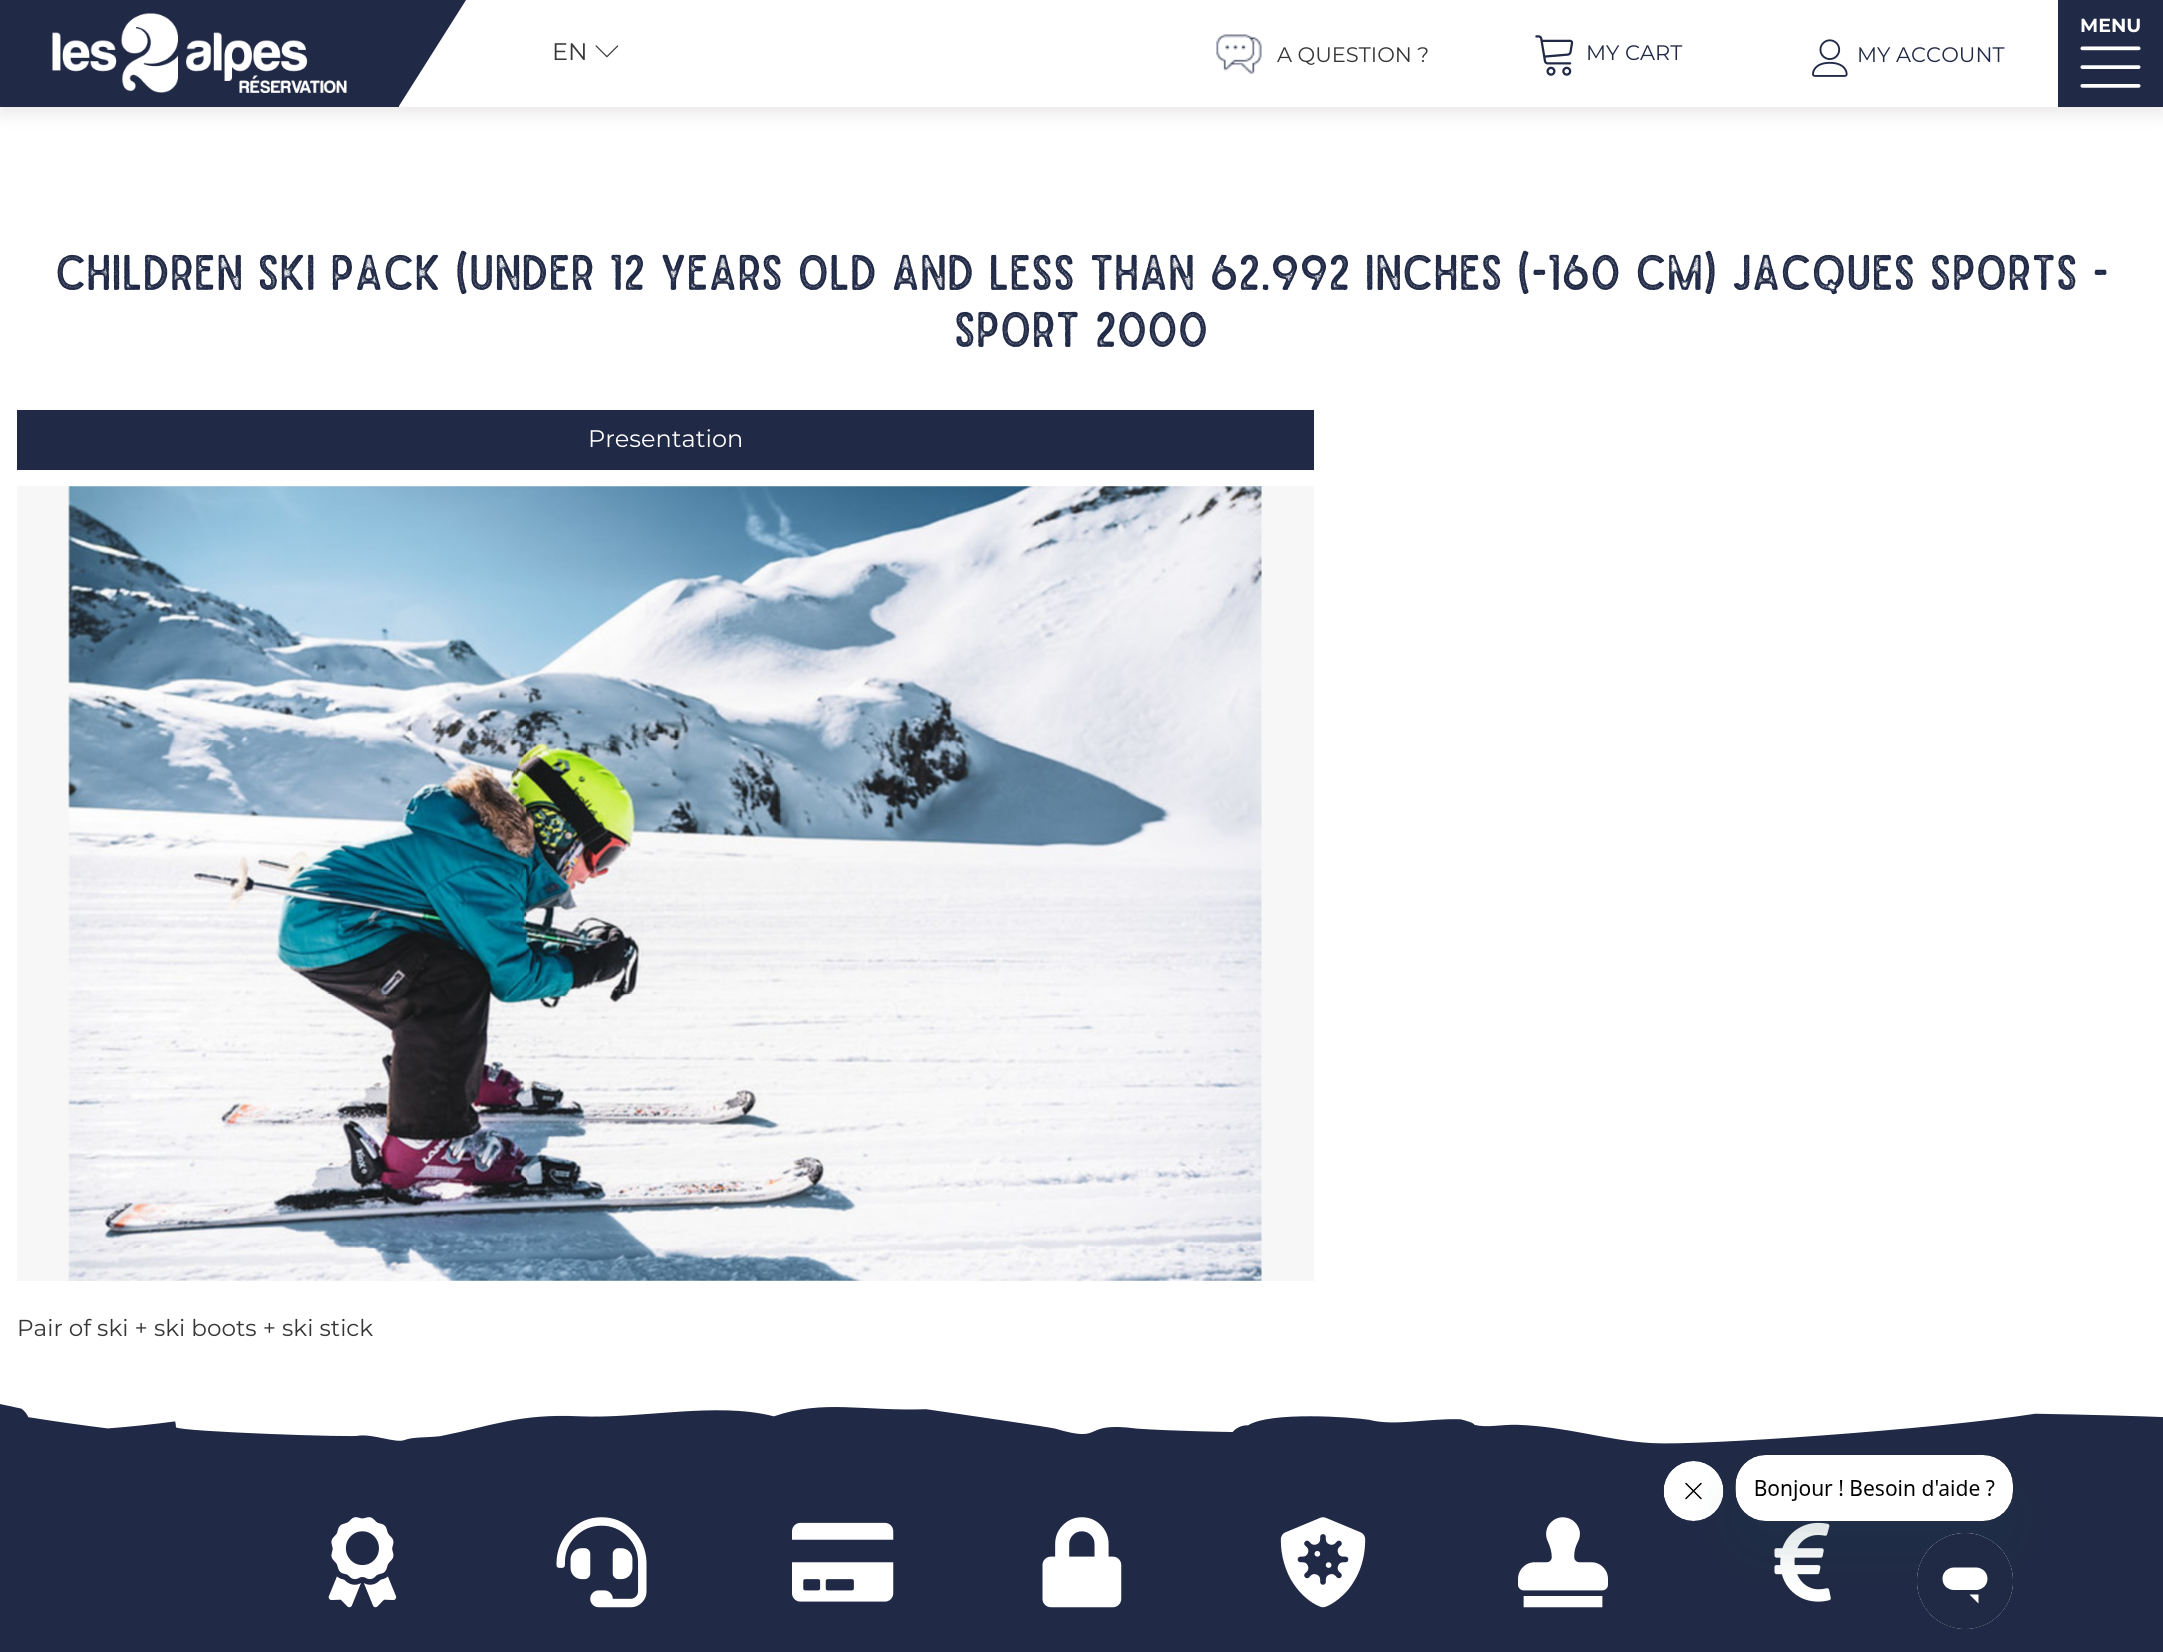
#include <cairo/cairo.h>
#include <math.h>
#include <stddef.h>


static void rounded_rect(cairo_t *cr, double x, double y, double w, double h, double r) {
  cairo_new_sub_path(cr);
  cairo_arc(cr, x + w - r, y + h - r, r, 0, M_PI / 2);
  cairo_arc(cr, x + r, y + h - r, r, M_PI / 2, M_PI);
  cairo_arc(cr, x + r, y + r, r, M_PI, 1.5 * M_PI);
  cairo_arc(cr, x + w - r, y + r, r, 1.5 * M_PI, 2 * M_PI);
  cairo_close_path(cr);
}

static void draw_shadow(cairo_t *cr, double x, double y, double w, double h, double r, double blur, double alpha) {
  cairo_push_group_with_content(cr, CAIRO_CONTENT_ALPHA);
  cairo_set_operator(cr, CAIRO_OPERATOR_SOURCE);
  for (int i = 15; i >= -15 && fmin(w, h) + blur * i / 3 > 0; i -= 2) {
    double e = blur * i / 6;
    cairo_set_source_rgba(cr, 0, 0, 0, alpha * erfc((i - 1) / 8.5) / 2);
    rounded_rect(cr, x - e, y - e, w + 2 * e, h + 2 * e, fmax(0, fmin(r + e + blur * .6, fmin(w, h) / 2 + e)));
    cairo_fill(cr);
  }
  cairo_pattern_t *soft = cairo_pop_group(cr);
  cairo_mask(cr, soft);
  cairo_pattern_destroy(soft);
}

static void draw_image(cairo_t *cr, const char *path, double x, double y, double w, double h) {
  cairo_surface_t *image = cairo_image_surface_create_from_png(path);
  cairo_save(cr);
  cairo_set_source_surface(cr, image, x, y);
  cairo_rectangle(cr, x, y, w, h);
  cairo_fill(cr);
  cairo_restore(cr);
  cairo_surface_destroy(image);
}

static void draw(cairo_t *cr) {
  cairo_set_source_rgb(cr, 1, 1, 1);
  cairo_paint(cr);
  cairo_set_source_rgb(cr, 35 / 255.0, 0, 15 / 255.0);
  draw_shadow(cr, 0, 6, 2163, 107, 0, 9, 0.1);
  cairo_set_source_rgb(cr, 1, 1, 1);
  cairo_rectangle(cr, 399, 0, 1659, 107);
  cairo_fill(cr);
  cairo_set_source_rgb(cr, 32 / 255.0, 41 / 255.0, 69 / 255.0);
  cairo_rectangle(cr, 0, 0, 399, 107);
  cairo_fill(cr);
  draw_image(cr, "images/1.png", 52, 13, 295, 80);
  cairo_new_path(cr);
  cairo_move_to(cr, 399, 0);
  cairo_line_to(cr, 466, 0);
  cairo_line_to(cr, 399, 106);
  cairo_close_path(cr);
  cairo_fill(cr);
  cairo_rectangle(cr, 2058, 0, 105, 107);
  cairo_fill(cr);
  draw_image(cr, "images/2.png", 2080, 46, 61, 42);
  draw_image(cr, "images/3.png", 595, 45, 24, 13);
  draw_image(cr, "images/4.png", 1216, 34, 46, 40);
  draw_image(cr, "images/5.png", 1535, 35, 39, 41);
  draw_image(cr, "images/6.png", 1812, 39, 36, 38);
  cairo_rectangle(cr, 17, 410, 1297, 60);
  cairo_fill(cr);
  cairo_set_source_rgb(cr, 247 / 255.0, 247 / 255.0, 247 / 255.0);
  cairo_rectangle(cr, 17, 486, 1297, 795);
  cairo_fill(cr);
  draw_image(cr, "images/7.png", 68, 486, 1194, 795);
  cairo_set_source_rgb(cr, 32 / 255.0, 41 / 255.0, 69 / 255.0);
  cairo_rectangle(cr, 0, 1404, 2163, 248);
  cairo_fill(cr);
  draw_image(cr, "images/8.png", 0, 1361, 2163, 83);
  draw_image(cr, "images/9.png", 328, 1517, 69, 91);
  draw_image(cr, "images/10.png", 556, 1517, 91, 91);
  draw_image(cr, "images/11.png", 792, 1522, 102, 80);
  draw_image(cr, "images/12.png", 1042, 1517, 80, 91);
  draw_image(cr, "images/13.png", 1280, 1517, 86, 91);
  draw_image(cr, "images/14.png", 1518, 1517, 90, 91);
  draw_image(cr, "images/15.png", 1774, 1522, 57, 80);
  draw_image(cr, "images/17.png", 1663, 1461, 61, 60);
  cairo_set_source_rgb(cr, 23 / 255.0, 73 / 255.0, 77 / 255.0);
  draw_shadow(cr, 1736, 1485, 277, 66, 30, 22.5, 0.15);
  draw_image(cr, "images/16.png", 1735, 1455, 278, 66);
  draw_image(cr, "images/18.png", 1917, 1533, 96, 96);
  cairo_select_font_face(cr, "Montserrat", CAIRO_FONT_SLANT_NORMAL, CAIRO_FONT_WEIGHT_BOLD);
  cairo_set_font_size(cr, 19);
  cairo_set_source_rgb(cr, 1, 1, 1);
  cairo_move_to(cr, 2080, 32);
  cairo_show_text(cr, "MENU");
  cairo_select_font_face(cr, "Montserrat", CAIRO_FONT_SLANT_NORMAL, CAIRO_FONT_WEIGHT_NORMAL);
  cairo_set_font_size(cr, 24);
  cairo_set_source_rgb(cr, 54 / 255.0, 54 / 255.0, 54 / 255.0);
  cairo_move_to(cr, 552, 60);
  cairo_show_text(cr, "EN");
  cairo_set_font_size(cr, 21);
  cairo_move_to(cr, 1277, 62);
  cairo_show_text(cr, "A QUESTION ?");
  cairo_set_source_rgb(cr, 32 / 255.0, 41 / 255.0, 69 / 255.0);
  cairo_move_to(cr, 1586, 60);
  cairo_show_text(cr, "MY CART");
  cairo_move_to(cr, 1857, 62);
  cairo_show_text(cr, "MY ACCOUNT");
  cairo_select_font_face(cr, "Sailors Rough", CAIRO_FONT_SLANT_NORMAL, CAIRO_FONT_WEIGHT_NORMAL);
  cairo_set_font_size(cr, 48);
  cairo_move_to(cr, 55, 290);
  cairo_show_text(cr, "Children ski pack (under 12 years old and less than 62.992 inches (-160 cm) JACQUES SPORTS -");
  cairo_move_to(cr, 954, 347);
  cairo_show_text(cr, "Sport 2000");
  cairo_select_font_face(cr, "Montserrat", CAIRO_FONT_SLANT_NORMAL, CAIRO_FONT_WEIGHT_NORMAL);
  cairo_set_font_size(cr, 24);
  cairo_set_source_rgb(cr, 1, 1, 1);
  cairo_move_to(cr, 588, 447);
  cairo_show_text(cr, "Presentation");
  cairo_set_font_size(cr, 23.1);
  cairo_set_source_rgb(cr, 54 / 255.0, 54 / 255.0, 54 / 255.0);
  cairo_move_to(cr, 17, 1336);
  cairo_show_text(cr, "Pair of ski + ski boots + ski stick");
}

int main(void) {
  cairo_surface_t *surface = cairo_image_surface_create(CAIRO_FORMAT_RGB24, 2163, 1652);
  cairo_t *cr = cairo_create(surface);
  cairo_font_options_t *options = cairo_font_options_create();
  cairo_font_options_set_hint_metrics(options, CAIRO_HINT_METRICS_OFF);
  cairo_font_options_set_hint_style(options, CAIRO_HINT_STYLE_NONE);
  cairo_set_font_options(cr, options);
  cairo_set_miter_limit(cr, 4);
  draw(cr);
  cairo_surface_write_to_png(surface, "out.png");
  cairo_font_options_destroy(options);
  cairo_destroy(cr);
  cairo_surface_destroy(surface);
  return 0;
}
